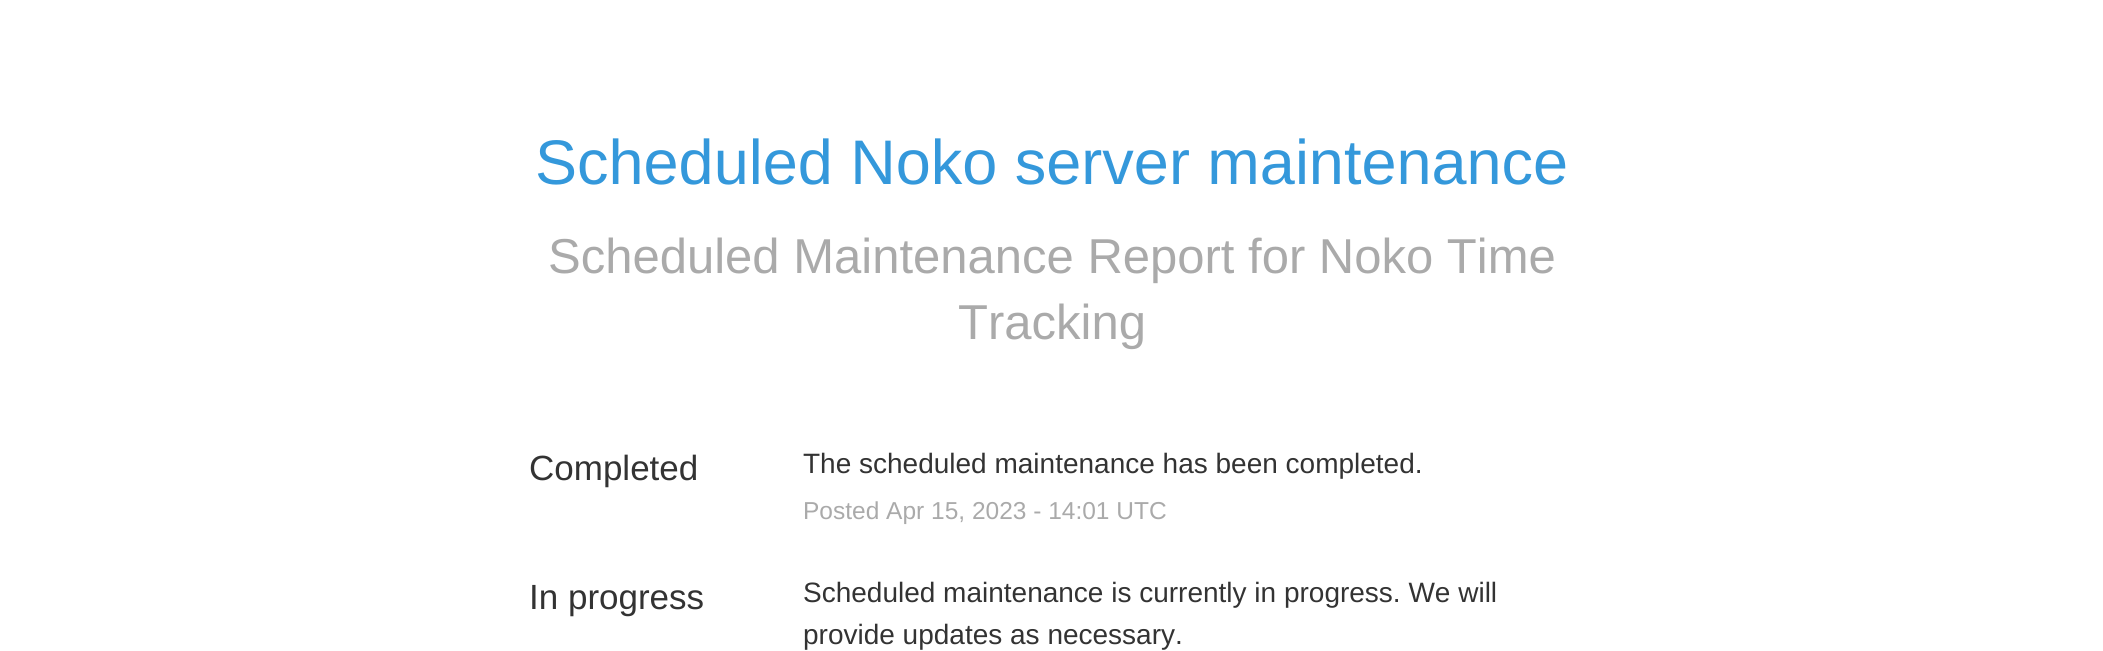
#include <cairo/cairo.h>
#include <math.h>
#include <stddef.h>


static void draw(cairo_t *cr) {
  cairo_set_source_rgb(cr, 1, 1, 1);
  cairo_paint(cr);
  cairo_select_font_face(cr, "Liberation Sans", CAIRO_FONT_SLANT_NORMAL, CAIRO_FONT_WEIGHT_NORMAL);
  cairo_set_font_size(cr, 63);
  cairo_set_source_rgb(cr, 52 / 255.0, 152 / 255.0, 219 / 255.0);
  cairo_move_to(cr, 535, 184);
  cairo_show_text(cr, "Scheduled Noko server maintenance");
  cairo_set_font_size(cr, 49);
  cairo_set_source_rgb(cr, 170 / 255.0, 170 / 255.0, 170 / 255.0);
  cairo_move_to(cr, 548, 273);
  cairo_show_text(cr, "Scheduled Maintenance Report for Noko Time");
  cairo_move_to(cr, 958, 339);
  cairo_show_text(cr, "Tracking");
  cairo_set_font_size(cr, 35);
  cairo_set_source_rgb(cr, 51 / 255.0, 51 / 255.0, 51 / 255.0);
  cairo_move_to(cr, 529, 480);
  cairo_show_text(cr, "Completed");
  cairo_set_font_size(cr, 28);
  cairo_move_to(cr, 803, 473);
  cairo_show_text(cr, "The scheduled maintenance has been completed.");
  cairo_set_font_size(cr, 24.5);
  cairo_set_source_rgb(cr, 170 / 255.0, 170 / 255.0, 170 / 255.0);
  cairo_move_to(cr, 803, 519);
  cairo_show_text(cr, "Posted Apr 15, 2023 - 14:01 UTC");
  cairo_set_font_size(cr, 35);
  cairo_set_source_rgb(cr, 51 / 255.0, 51 / 255.0, 51 / 255.0);
  cairo_move_to(cr, 529, 609);
  cairo_show_text(cr, "In progress");
  cairo_set_font_size(cr, 28);
  cairo_move_to(cr, 803, 602);
  cairo_show_text(cr, "Scheduled maintenance is currently in progress. We will");
  cairo_move_to(cr, 803, 644);
  cairo_show_text(cr, "provide updates as necessary.");
}

int main(void) {
  cairo_surface_t *surface = cairo_image_surface_create(CAIRO_FORMAT_RGB24, 2103, 651);
  cairo_t *cr = cairo_create(surface);
  cairo_font_options_t *options = cairo_font_options_create();
  cairo_font_options_set_hint_metrics(options, CAIRO_HINT_METRICS_OFF);
  cairo_font_options_set_hint_style(options, CAIRO_HINT_STYLE_NONE);
  cairo_set_font_options(cr, options);
  cairo_set_miter_limit(cr, 4);
  draw(cr);
  cairo_surface_write_to_png(surface, "out.png");
  cairo_font_options_destroy(options);
  cairo_destroy(cr);
  cairo_surface_destroy(surface);
  return 0;
}
